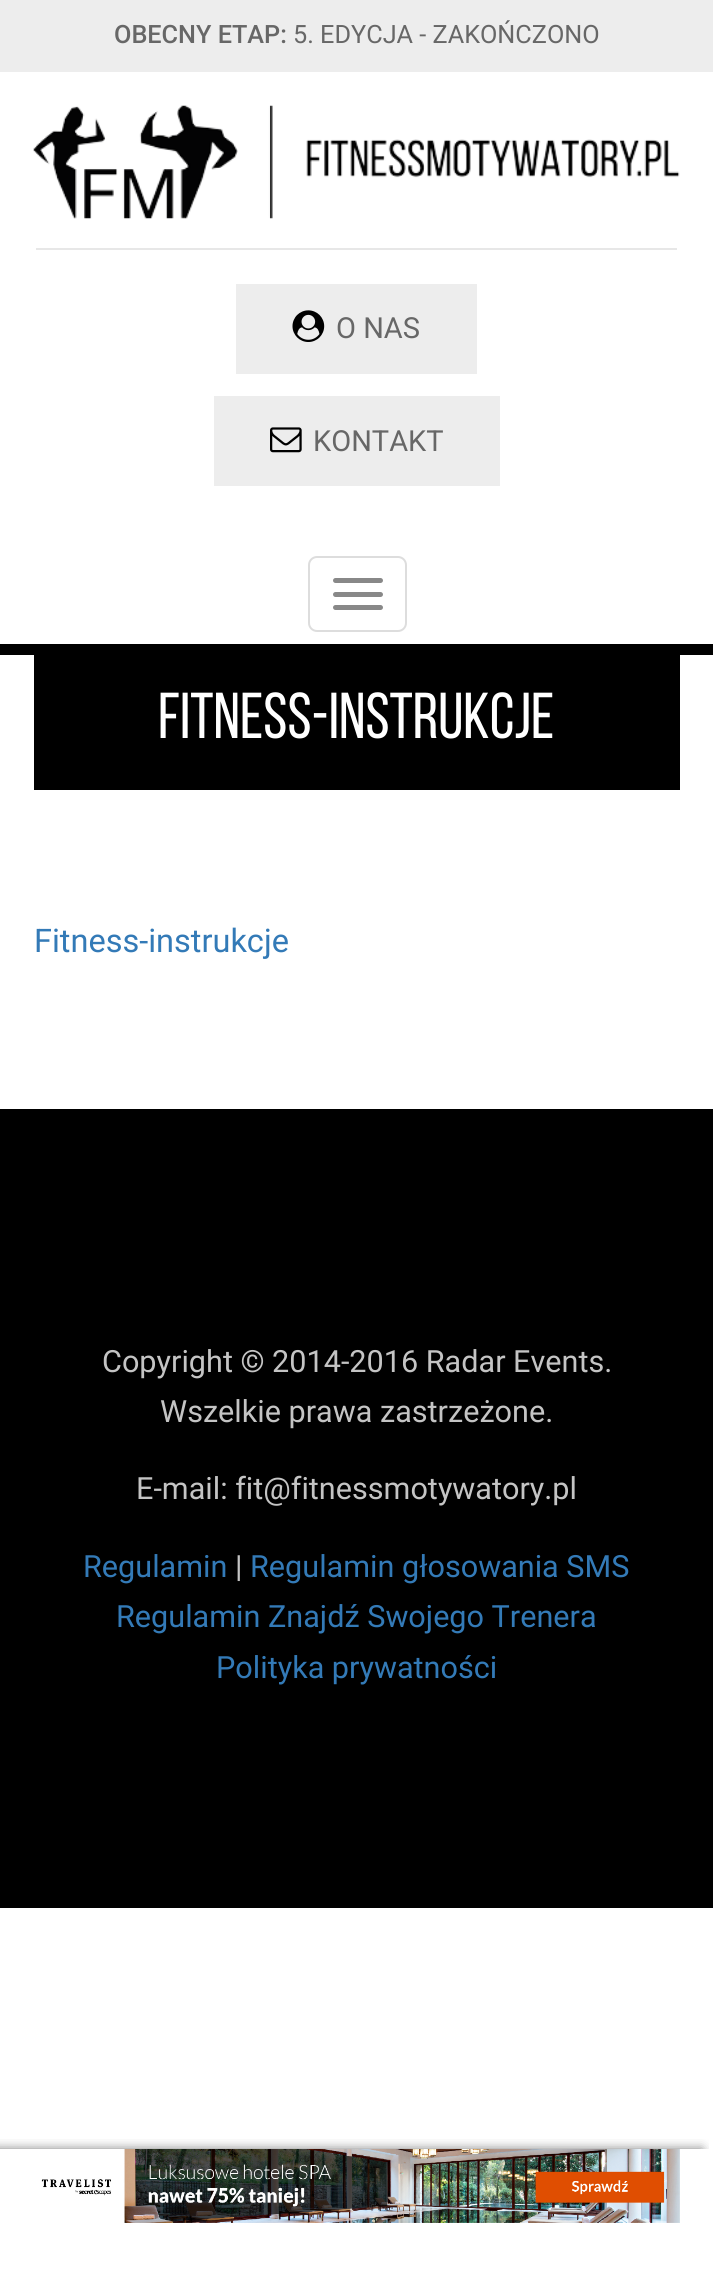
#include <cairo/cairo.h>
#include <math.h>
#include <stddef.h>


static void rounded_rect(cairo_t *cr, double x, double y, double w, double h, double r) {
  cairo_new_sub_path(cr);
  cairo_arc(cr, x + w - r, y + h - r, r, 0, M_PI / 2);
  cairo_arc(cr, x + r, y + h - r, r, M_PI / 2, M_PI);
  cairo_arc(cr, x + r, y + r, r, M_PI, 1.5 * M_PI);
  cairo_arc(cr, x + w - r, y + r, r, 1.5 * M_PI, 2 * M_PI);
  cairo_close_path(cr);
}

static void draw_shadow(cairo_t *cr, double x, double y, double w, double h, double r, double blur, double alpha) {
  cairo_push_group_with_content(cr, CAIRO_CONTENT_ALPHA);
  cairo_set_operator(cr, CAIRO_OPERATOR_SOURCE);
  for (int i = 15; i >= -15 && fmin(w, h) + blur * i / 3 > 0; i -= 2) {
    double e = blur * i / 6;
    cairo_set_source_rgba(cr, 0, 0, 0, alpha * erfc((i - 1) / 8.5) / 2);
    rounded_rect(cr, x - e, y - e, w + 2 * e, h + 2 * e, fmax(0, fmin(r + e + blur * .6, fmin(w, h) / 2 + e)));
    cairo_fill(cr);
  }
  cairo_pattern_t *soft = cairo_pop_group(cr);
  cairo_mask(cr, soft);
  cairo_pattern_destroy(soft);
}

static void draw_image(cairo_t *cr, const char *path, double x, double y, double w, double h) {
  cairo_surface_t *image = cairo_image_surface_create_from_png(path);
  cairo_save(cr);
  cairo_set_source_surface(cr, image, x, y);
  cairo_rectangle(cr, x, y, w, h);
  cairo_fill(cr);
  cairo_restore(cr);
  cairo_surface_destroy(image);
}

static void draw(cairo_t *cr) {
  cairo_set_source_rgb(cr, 1, 1, 1);
  cairo_paint(cr);
  cairo_set_source_rgb(cr, 0, 0, 0);
  cairo_rectangle(cr, 0, 644, 713, 11);
  cairo_fill(cr);
  cairo_set_source_rgb(cr, 237 / 255.0, 237 / 255.0, 237 / 255.0);
  cairo_rectangle(cr, 0, 0, 713, 72);
  cairo_fill(cr);
  draw_image(cr, "images/1.png", 33, 105, 647, 114);
  cairo_set_source_rgb(cr, 231 / 255.0, 231 / 255.0, 231 / 255.0);
  cairo_rectangle(cr, 36, 248, 641, 2);
  cairo_fill(cr);
  cairo_set_source_rgb(cr, 237 / 255.0, 237 / 255.0, 237 / 255.0);
  cairo_rectangle(cr, 236, 284, 241, 90);
  cairo_fill(cr);
  draw_image(cr, "images/2.png", 292, 310, 33, 32);
  cairo_rectangle(cr, 214, 396, 286, 90);
  cairo_fill(cr);
  draw_image(cr, "images/3.png", 270, 427, 32, 26);
  rounded_rect(cr, 309, 557, 97, 74, 8);
  cairo_set_source_rgb(cr, 221 / 255.0, 221 / 255.0, 221 / 255.0);
  cairo_stroke(cr);
  cairo_set_source_rgb(cr, 136 / 255.0, 136 / 255.0, 136 / 255.0);
  rounded_rect(cr, 333, 578, 50, 5, 2.5);
  cairo_fill(cr);
  rounded_rect(cr, 333, 592, 50, 5, 2.5);
  cairo_fill(cr);
  rounded_rect(cr, 333, 605, 50, 5, 2.5);
  cairo_fill(cr);
  cairo_set_source_rgb(cr, 0, 0, 0);
  cairo_rectangle(cr, 34, 655, 646, 135);
  cairo_fill(cr);
  cairo_rectangle(cr, 0, 1109, 713, 799);
  cairo_fill(cr);
  cairo_save(cr);
  cairo_rectangle(cr, 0, 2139, 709, 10);
  cairo_clip(cr);
  cairo_set_source_rgb(cr, 0, 0, 0);
  draw_shadow(cr, -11, 2149, 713, 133, 0, 5.5, 0.5);
  cairo_restore(cr);
  draw_image(cr, "images/4.png", 41, 2149, 639, 74);
  cairo_select_font_face(cr, "Roboto Medium", CAIRO_FONT_SLANT_NORMAL, CAIRO_FONT_WEIGHT_NORMAL);
  cairo_set_font_size(cr, 25.25);
  cairo_set_source_rgb(cr, 103 / 255.0, 103 / 255.0, 103 / 255.0);
  cairo_move_to(cr, 114, 43);
  cairo_show_text(cr, "OBECNY ETAP:");
  cairo_select_font_face(cr, "Roboto", CAIRO_FONT_SLANT_NORMAL, CAIRO_FONT_WEIGHT_NORMAL);
  cairo_move_to(cr, 293, 43);
  cairo_show_text(cr, "5. EDYCJA - ZAKOŃCZONO");
  cairo_set_font_size(cr, 29);
  cairo_move_to(cr, 336, 338);
  cairo_show_text(cr, "O NAS");
  cairo_move_to(cr, 313, 451);
  cairo_show_text(cr, "KONTAKT");
  cairo_select_font_face(cr, "Bebas Neue", CAIRO_FONT_SLANT_NORMAL, CAIRO_FONT_WEIGHT_NORMAL);
  cairo_set_font_size(cr, 64.75);
  cairo_set_source_rgb(cr, 1, 1, 1);
  cairo_move_to(cr, 158, 738);
  cairo_show_text(cr, "Fitness-instrukcje");
  cairo_select_font_face(cr, "Roboto", CAIRO_FONT_SLANT_NORMAL, CAIRO_FONT_WEIGHT_NORMAL);
  cairo_set_font_size(cr, 32.5);
  cairo_set_source_rgb(cr, 51 / 255.0, 122 / 255.0, 183 / 255.0);
  cairo_move_to(cr, 34, 952);
  cairo_show_text(cr, "Fitness-instrukcje");
  cairo_set_font_size(cr, 30.6);
  cairo_set_source_rgb(cr, 196 / 255.0, 196 / 255.0, 196 / 255.0);
  cairo_move_to(cr, 102, 1372);
  cairo_show_text(cr, "Copyright © 2014-2016 Radar Events.");
  cairo_move_to(cr, 160, 1422);
  cairo_show_text(cr, "Wszelkie prawa zastrzeżone.");
  cairo_move_to(cr, 136, 1499);
  cairo_show_text(cr, "E-mail: fit@fitnessmotywatory.pl");
  cairo_set_source_rgb(cr, 51 / 255.0, 122 / 255.0, 183 / 255.0);
  cairo_move_to(cr, 83, 1577);
  cairo_show_text(cr, "Regulamin");
  cairo_set_source_rgb(cr, 196 / 255.0, 196 / 255.0, 196 / 255.0);
  cairo_move_to(cr, 235, 1577);
  cairo_show_text(cr, "|");
  cairo_set_source_rgb(cr, 51 / 255.0, 122 / 255.0, 183 / 255.0);
  cairo_move_to(cr, 250, 1577);
  cairo_show_text(cr, "Regulamin głosowania SMS");
  cairo_move_to(cr, 116, 1627);
  cairo_show_text(cr, "Regulamin Znajdź Swojego Trenera");
  cairo_move_to(cr, 216, 1678);
  cairo_show_text(cr, "Polityka prywatności");
}

int main(void) {
  cairo_surface_t *surface = cairo_image_surface_create(CAIRO_FORMAT_RGB24, 713, 2281);
  cairo_t *cr = cairo_create(surface);
  cairo_font_options_t *options = cairo_font_options_create();
  cairo_font_options_set_hint_metrics(options, CAIRO_HINT_METRICS_OFF);
  cairo_font_options_set_hint_style(options, CAIRO_HINT_STYLE_NONE);
  cairo_set_font_options(cr, options);
  cairo_set_miter_limit(cr, 4);
  draw(cr);
  cairo_surface_write_to_png(surface, "out.png");
  cairo_font_options_destroy(options);
  cairo_destroy(cr);
  cairo_surface_destroy(surface);
  return 0;
}
